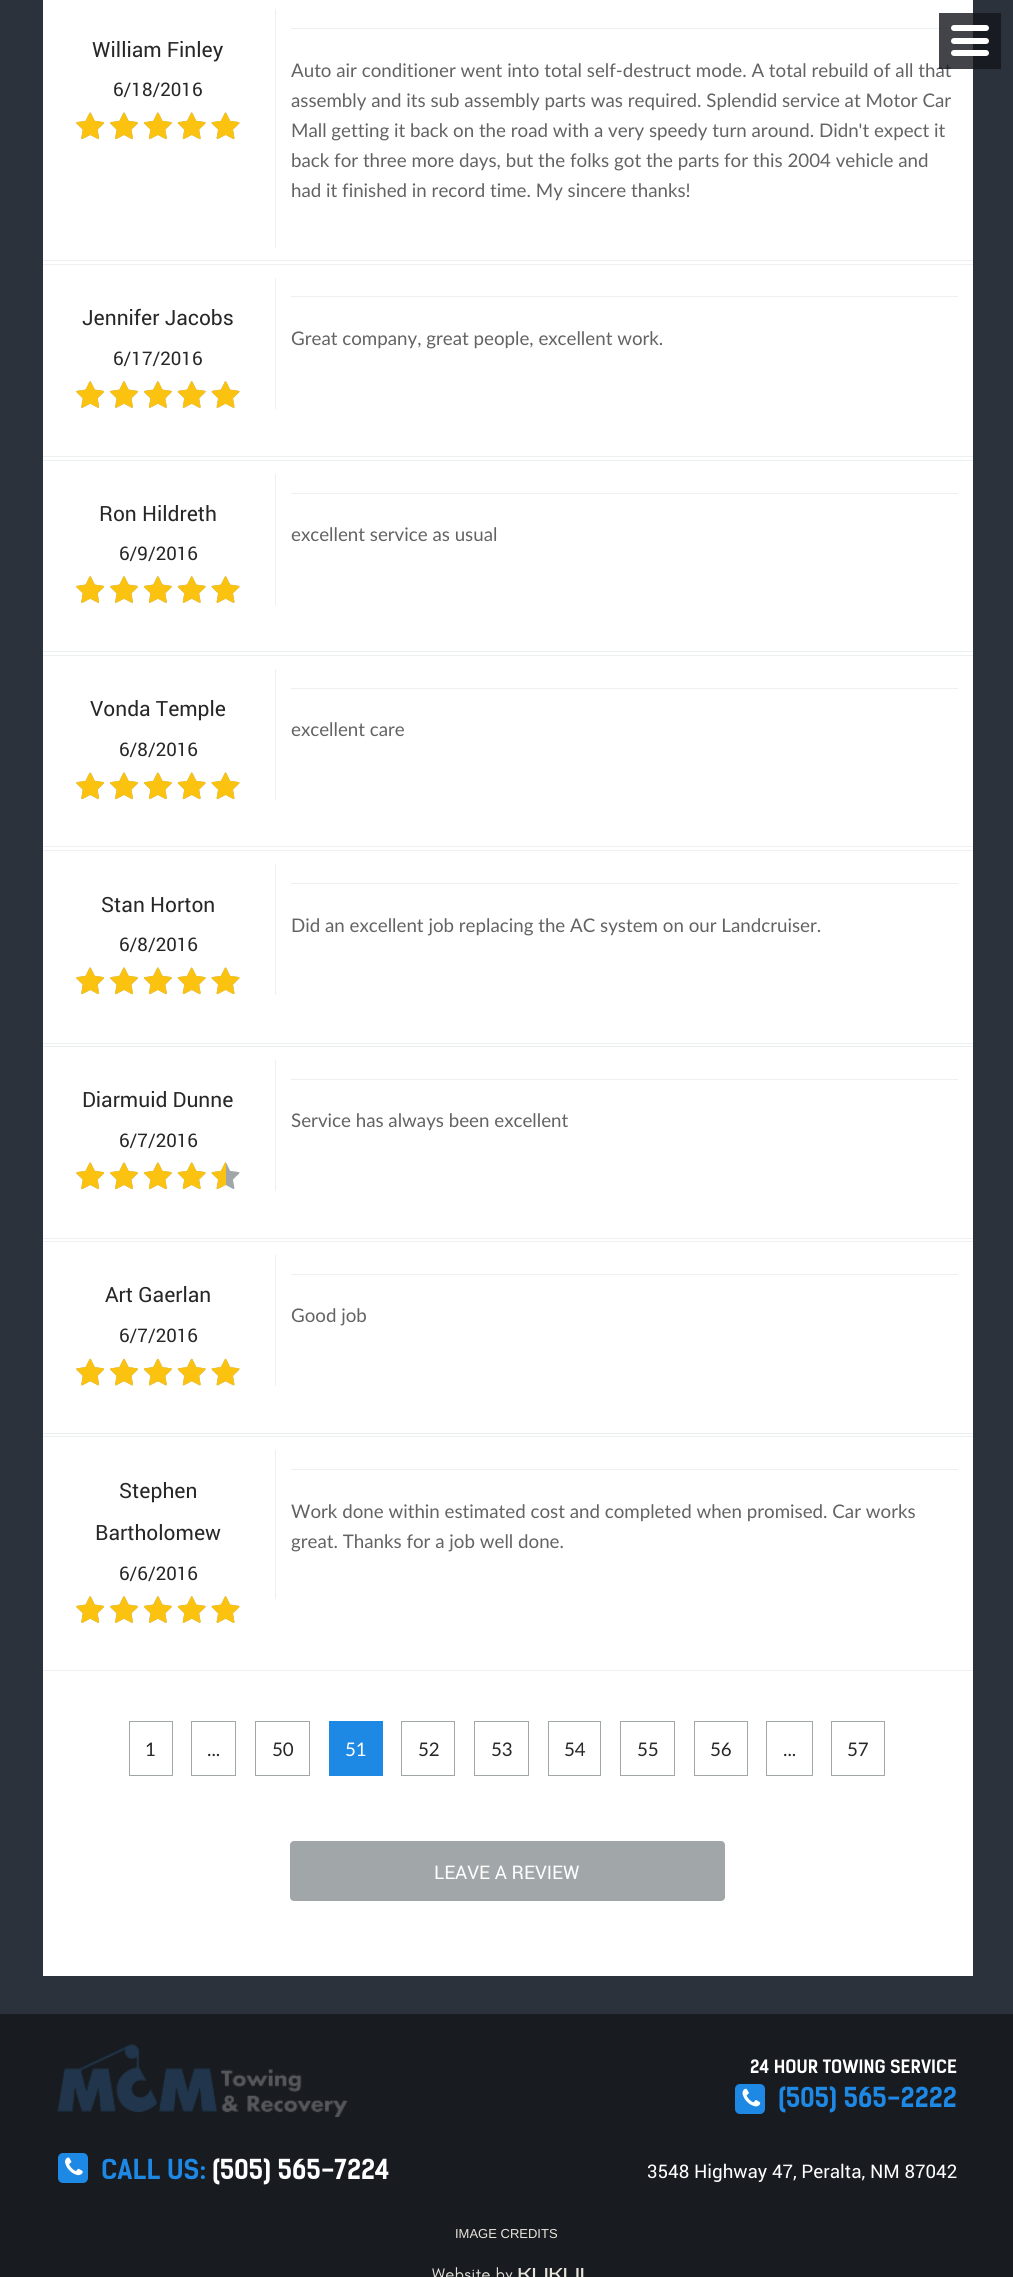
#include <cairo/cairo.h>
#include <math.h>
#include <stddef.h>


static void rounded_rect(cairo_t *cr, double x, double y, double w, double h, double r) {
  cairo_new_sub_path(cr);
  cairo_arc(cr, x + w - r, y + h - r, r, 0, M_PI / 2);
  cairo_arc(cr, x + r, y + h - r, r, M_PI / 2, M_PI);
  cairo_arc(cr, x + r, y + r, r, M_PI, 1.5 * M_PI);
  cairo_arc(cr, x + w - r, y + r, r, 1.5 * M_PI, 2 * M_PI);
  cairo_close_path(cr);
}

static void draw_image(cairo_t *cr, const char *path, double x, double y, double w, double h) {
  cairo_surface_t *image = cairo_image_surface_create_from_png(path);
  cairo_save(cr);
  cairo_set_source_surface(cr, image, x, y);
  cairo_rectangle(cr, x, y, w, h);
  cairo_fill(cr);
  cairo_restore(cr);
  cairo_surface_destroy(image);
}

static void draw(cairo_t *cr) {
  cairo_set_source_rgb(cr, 44 / 255.0, 50 / 255.0, 60 / 255.0);
  cairo_paint(cr);
  cairo_set_source_rgb(cr, 1, 1, 1);
  cairo_rectangle(cr, 43, 0, 930, 1976);
  cairo_fill(cr);
  cairo_set_source_rgb(cr, 236 / 255.0, 240 / 255.0, 241 / 255.0);
  cairo_rectangle(cr, 43, 260, 930, 1);
  cairo_fill(cr);
  draw_image(cr, "images/1.png", 76, 112, 164, 28);
  draw_image(cr, "images/2.png", 76, 112, 164, 28);
  cairo_rectangle(cr, 275, 9, 1, 239);
  cairo_fill(cr);
  cairo_rectangle(cr, 291, 28, 667, 1);
  cairo_fill(cr);
  cairo_rectangle(cr, 43, 264, 930, 1);
  cairo_fill(cr);
  cairo_rectangle(cr, 43, 456, 930, 1);
  cairo_fill(cr);
  draw_image(cr, "images/3.png", 76, 381, 164, 27);
  draw_image(cr, "images/4.png", 76, 381, 164, 27);
  cairo_rectangle(cr, 275, 278, 1, 131);
  cairo_fill(cr);
  cairo_rectangle(cr, 291, 296, 667, 1);
  cairo_fill(cr);
  cairo_rectangle(cr, 43, 460, 930, 1);
  cairo_fill(cr);
  cairo_rectangle(cr, 43, 651, 930, 1);
  cairo_fill(cr);
  draw_image(cr, "images/3.png", 76, 576, 164, 27);
  draw_image(cr, "images/4.png", 76, 576, 164, 27);
  cairo_rectangle(cr, 275, 474, 1, 131);
  cairo_fill(cr);
  cairo_rectangle(cr, 291, 493, 667, 1);
  cairo_fill(cr);
  cairo_rectangle(cr, 43, 655, 930, 1);
  cairo_fill(cr);
  cairo_rectangle(cr, 43, 846, 930, 1);
  cairo_fill(cr);
  draw_image(cr, "images/1.png", 76, 772, 164, 28);
  draw_image(cr, "images/2.png", 76, 772, 164, 28);
  cairo_rectangle(cr, 275, 669, 1, 131);
  cairo_fill(cr);
  cairo_rectangle(cr, 291, 688, 667, 1);
  cairo_fill(cr);
  cairo_rectangle(cr, 43, 850, 930, 1);
  cairo_fill(cr);
  cairo_rectangle(cr, 43, 1043, 930, 1);
  cairo_fill(cr);
  draw_image(cr, "images/1.png", 76, 967, 164, 28);
  draw_image(cr, "images/2.png", 76, 967, 164, 28);
  cairo_rectangle(cr, 275, 864, 1, 131);
  cairo_fill(cr);
  cairo_rectangle(cr, 291, 883, 667, 1);
  cairo_fill(cr);
  cairo_rectangle(cr, 43, 1046, 930, 1);
  cairo_fill(cr);
  cairo_rectangle(cr, 43, 1238, 930, 1);
  cairo_fill(cr);
  draw_image(cr, "images/1.png", 76, 1162, 164, 28);
  draw_image(cr, "images/5.png", 76, 1162, 150, 28);
  cairo_rectangle(cr, 275, 1060, 1, 131);
  cairo_fill(cr);
  cairo_rectangle(cr, 291, 1079, 667, 1);
  cairo_fill(cr);
  cairo_rectangle(cr, 43, 1241, 930, 1);
  cairo_fill(cr);
  cairo_rectangle(cr, 43, 1433, 930, 1);
  cairo_fill(cr);
  draw_image(cr, "images/6.png", 76, 1358, 164, 28);
  draw_image(cr, "images/7.png", 76, 1358, 164, 28);
  cairo_rectangle(cr, 275, 1255, 1, 131);
  cairo_fill(cr);
  cairo_rectangle(cr, 291, 1274, 667, 1);
  cairo_fill(cr);
  cairo_rectangle(cr, 43, 1436, 930, 1);
  cairo_fill(cr);
  cairo_rectangle(cr, 43, 1670, 930, 1);
  cairo_fill(cr);
  draw_image(cr, "images/3.png", 76, 1596, 164, 27);
  draw_image(cr, "images/4.png", 76, 1596, 164, 27);
  cairo_rectangle(cr, 275, 1450, 1, 149);
  cairo_fill(cr);
  cairo_rectangle(cr, 291, 1469, 667, 1);
  cairo_fill(cr);
  cairo_rectangle(cr, 129.5, 1721.5, 43, 54);
  cairo_set_source_rgb(cr, 161 / 255.0, 167 / 255.0, 168 / 255.0);
  cairo_set_line_width(cr, 1);
  cairo_stroke(cr);
  cairo_rectangle(cr, 191.5, 1721.5, 44, 54);
  cairo_stroke(cr);
  cairo_rectangle(cr, 255.5, 1721.5, 54, 54);
  cairo_stroke(cr);
  cairo_set_source_rgb(cr, 30 / 255.0, 136 / 255.0, 229 / 255.0);
  cairo_rectangle(cr, 329, 1721, 54, 55);
  cairo_fill(cr);
  cairo_rectangle(cr, 401.5, 1721.5, 53, 54);
  cairo_set_source_rgb(cr, 161 / 255.0, 167 / 255.0, 168 / 255.0);
  cairo_stroke(cr);
  cairo_rectangle(cr, 474.5, 1721.5, 54, 54);
  cairo_stroke(cr);
  cairo_rectangle(cr, 548.5, 1721.5, 52, 54);
  cairo_stroke(cr);
  cairo_rectangle(cr, 620.5, 1721.5, 54, 54);
  cairo_stroke(cr);
  cairo_rectangle(cr, 694.5, 1721.5, 53, 54);
  cairo_stroke(cr);
  cairo_rectangle(cr, 766.5, 1721.5, 46, 54);
  cairo_stroke(cr);
  cairo_rectangle(cr, 831.5, 1721.5, 53, 54);
  cairo_stroke(cr);
  rounded_rect(cr, 290, 1841, 435, 60, 4);
  cairo_fill(cr);
  cairo_set_source_rgb(cr, 24 / 255.0, 27 / 255.0, 32 / 255.0);
  cairo_rectangle(cr, 0, 2014, 1013, 263);
  cairo_fill(cr);
  draw_image(cr, "images/8.png", 57, 2044, 291, 73);
  cairo_set_source_rgb(cr, 30 / 255.0, 136 / 255.0, 229 / 255.0);
  rounded_rect(cr, 735, 2084, 30, 30, 5);
  cairo_fill(cr);
  draw_image(cr, "images/9.png", 742, 2088, 19, 19);
  rounded_rect(cr, 58, 2153, 30, 30, 5);
  cairo_fill(cr);
  draw_image(cr, "images/10.png", 65, 2157, 18, 19);
  draw_image(cr, "images/11.png", 432, 2267, 152, 10);
  cairo_select_font_face(cr, "Roboto", CAIRO_FONT_SLANT_NORMAL, CAIRO_FONT_WEIGHT_NORMAL);
  cairo_set_font_size(cr, 21);
  cairo_set_source_rgb(cr, 39 / 255.0, 39 / 255.0, 39 / 255.0);
  cairo_move_to(cr, 92, 57);
  cairo_show_text(cr, "William Finley");
  cairo_set_font_size(cr, 18.75);
  cairo_move_to(cr, 113, 96);
  cairo_show_text(cr, "6/18/2016");
  cairo_select_font_face(cr, "Lato", CAIRO_FONT_SLANT_NORMAL, CAIRO_FONT_WEIGHT_NORMAL);
  cairo_set_source_rgb(cr, 99 / 255.0, 99 / 255.0, 99 / 255.0);
  cairo_move_to(cr, 291, 77);
  cairo_show_text(cr, "Auto air conditioner went into total self-destruct mode. A total rebuild of all that");
  cairo_move_to(cr, 291, 107);
  cairo_show_text(cr, "assembly and its sub assembly parts was required. Splendid service at Motor Car");
  cairo_move_to(cr, 291, 137);
  cairo_show_text(cr, "Mall getting it back on the road with a very speedy turn around. Didn't expect it");
  cairo_move_to(cr, 291, 167);
  cairo_show_text(cr, "back for three more days, but the folks got the parts for this 2004 vehicle and");
  cairo_move_to(cr, 291, 197);
  cairo_show_text(cr, "had it finished in record time. My sincere thanks!");
  cairo_select_font_face(cr, "Roboto", CAIRO_FONT_SLANT_NORMAL, CAIRO_FONT_WEIGHT_NORMAL);
  cairo_set_font_size(cr, 21);
  cairo_set_source_rgb(cr, 39 / 255.0, 39 / 255.0, 39 / 255.0);
  cairo_move_to(cr, 82, 325);
  cairo_show_text(cr, "Jennifer Jacobs");
  cairo_set_font_size(cr, 18.75);
  cairo_move_to(cr, 113, 365);
  cairo_show_text(cr, "6/17/2016");
  cairo_select_font_face(cr, "Lato", CAIRO_FONT_SLANT_NORMAL, CAIRO_FONT_WEIGHT_NORMAL);
  cairo_set_source_rgb(cr, 99 / 255.0, 99 / 255.0, 99 / 255.0);
  cairo_move_to(cr, 291, 345);
  cairo_show_text(cr, "Great company, great people, excellent work.");
  cairo_select_font_face(cr, "Roboto", CAIRO_FONT_SLANT_NORMAL, CAIRO_FONT_WEIGHT_NORMAL);
  cairo_set_font_size(cr, 21);
  cairo_set_source_rgb(cr, 39 / 255.0, 39 / 255.0, 39 / 255.0);
  cairo_move_to(cr, 99, 521);
  cairo_show_text(cr, "Ron Hildreth");
  cairo_set_font_size(cr, 18.75);
  cairo_move_to(cr, 119, 560);
  cairo_show_text(cr, "6/9/2016");
  cairo_select_font_face(cr, "Lato", CAIRO_FONT_SLANT_NORMAL, CAIRO_FONT_WEIGHT_NORMAL);
  cairo_set_source_rgb(cr, 99 / 255.0, 99 / 255.0, 99 / 255.0);
  cairo_move_to(cr, 291, 541);
  cairo_show_text(cr, "excellent service as usual");
  cairo_select_font_face(cr, "Roboto", CAIRO_FONT_SLANT_NORMAL, CAIRO_FONT_WEIGHT_NORMAL);
  cairo_set_font_size(cr, 21);
  cairo_set_source_rgb(cr, 39 / 255.0, 39 / 255.0, 39 / 255.0);
  cairo_move_to(cr, 90, 716);
  cairo_show_text(cr, "Vonda Temple");
  cairo_set_font_size(cr, 18.75);
  cairo_move_to(cr, 119, 756);
  cairo_show_text(cr, "6/8/2016");
  cairo_select_font_face(cr, "Lato", CAIRO_FONT_SLANT_NORMAL, CAIRO_FONT_WEIGHT_NORMAL);
  cairo_set_source_rgb(cr, 99 / 255.0, 99 / 255.0, 99 / 255.0);
  cairo_move_to(cr, 291, 736);
  cairo_show_text(cr, "excellent care");
  cairo_select_font_face(cr, "Roboto", CAIRO_FONT_SLANT_NORMAL, CAIRO_FONT_WEIGHT_NORMAL);
  cairo_set_font_size(cr, 21);
  cairo_set_source_rgb(cr, 39 / 255.0, 39 / 255.0, 39 / 255.0);
  cairo_move_to(cr, 101, 912);
  cairo_show_text(cr, "Stan Horton");
  cairo_set_font_size(cr, 18.75);
  cairo_move_to(cr, 119, 951);
  cairo_show_text(cr, "6/8/2016");
  cairo_select_font_face(cr, "Lato", CAIRO_FONT_SLANT_NORMAL, CAIRO_FONT_WEIGHT_NORMAL);
  cairo_set_source_rgb(cr, 99 / 255.0, 99 / 255.0, 99 / 255.0);
  cairo_move_to(cr, 291, 932);
  cairo_show_text(cr, "Did an excellent job replacing the AC system on our Landcruiser.");
  cairo_select_font_face(cr, "Roboto", CAIRO_FONT_SLANT_NORMAL, CAIRO_FONT_WEIGHT_NORMAL);
  cairo_set_font_size(cr, 21);
  cairo_set_source_rgb(cr, 39 / 255.0, 39 / 255.0, 39 / 255.0);
  cairo_move_to(cr, 82, 1107);
  cairo_show_text(cr, "Diarmuid Dunne");
  cairo_set_font_size(cr, 18.75);
  cairo_move_to(cr, 119, 1147);
  cairo_show_text(cr, "6/7/2016");
  cairo_select_font_face(cr, "Lato", CAIRO_FONT_SLANT_NORMAL, CAIRO_FONT_WEIGHT_NORMAL);
  cairo_set_source_rgb(cr, 99 / 255.0, 99 / 255.0, 99 / 255.0);
  cairo_move_to(cr, 291, 1127);
  cairo_show_text(cr, "Service has always been excellent");
  cairo_select_font_face(cr, "Roboto", CAIRO_FONT_SLANT_NORMAL, CAIRO_FONT_WEIGHT_NORMAL);
  cairo_set_font_size(cr, 21);
  cairo_set_source_rgb(cr, 39 / 255.0, 39 / 255.0, 39 / 255.0);
  cairo_move_to(cr, 105, 1302);
  cairo_show_text(cr, "Art Gaerlan");
  cairo_set_font_size(cr, 18.75);
  cairo_move_to(cr, 119, 1342);
  cairo_show_text(cr, "6/7/2016");
  cairo_select_font_face(cr, "Lato", CAIRO_FONT_SLANT_NORMAL, CAIRO_FONT_WEIGHT_NORMAL);
  cairo_set_source_rgb(cr, 99 / 255.0, 99 / 255.0, 99 / 255.0);
  cairo_move_to(cr, 291, 1322);
  cairo_show_text(cr, "Good job");
  cairo_select_font_face(cr, "Roboto", CAIRO_FONT_SLANT_NORMAL, CAIRO_FONT_WEIGHT_NORMAL);
  cairo_set_font_size(cr, 21);
  cairo_set_source_rgb(cr, 39 / 255.0, 39 / 255.0, 39 / 255.0);
  cairo_move_to(cr, 119, 1498);
  cairo_show_text(cr, "Stephen");
  cairo_move_to(cr, 95, 1540);
  cairo_show_text(cr, "Bartholomew");
  cairo_set_font_size(cr, 18.75);
  cairo_move_to(cr, 119, 1580);
  cairo_show_text(cr, "6/6/2016");
  cairo_select_font_face(cr, "Lato", CAIRO_FONT_SLANT_NORMAL, CAIRO_FONT_WEIGHT_NORMAL);
  cairo_set_source_rgb(cr, 99 / 255.0, 99 / 255.0, 99 / 255.0);
  cairo_move_to(cr, 291, 1518);
  cairo_show_text(cr, "Work done within estimated cost and completed when promised. Car works");
  cairo_move_to(cr, 291, 1548);
  cairo_show_text(cr, "great. Thanks for a job well done.");
  cairo_set_source_rgb(cr, 39 / 255.0, 39 / 255.0, 39 / 255.0);
  cairo_move_to(cr, 145, 1756);
  cairo_show_text(cr, "1");
  cairo_move_to(cr, 207, 1756);
  cairo_show_text(cr, "...");
  cairo_move_to(cr, 272, 1756);
  cairo_show_text(cr, "50");
  cairo_set_source_rgb(cr, 1, 1, 1);
  cairo_move_to(cr, 345, 1756);
  cairo_show_text(cr, "51");
  cairo_set_source_rgb(cr, 39 / 255.0, 39 / 255.0, 39 / 255.0);
  cairo_move_to(cr, 418, 1756);
  cairo_show_text(cr, "52");
  cairo_move_to(cr, 491, 1756);
  cairo_show_text(cr, "53");
  cairo_move_to(cr, 564, 1756);
  cairo_show_text(cr, "54");
  cairo_move_to(cr, 637, 1756);
  cairo_show_text(cr, "55");
  cairo_move_to(cr, 710, 1756);
  cairo_show_text(cr, "56");
  cairo_move_to(cr, 783, 1756);
  cairo_show_text(cr, "...");
  cairo_move_to(cr, 847, 1756);
  cairo_show_text(cr, "57");
  cairo_select_font_face(cr, "Roboto", CAIRO_FONT_SLANT_NORMAL, CAIRO_FONT_WEIGHT_NORMAL);
  cairo_set_source_rgb(cr, 1, 1, 1);
  cairo_move_to(cr, 434, 1879);
  cairo_show_text(cr, "LEAVE A REVIEW");
  cairo_set_source_rgba(cr, 19 / 255.0, 22 / 255.0, 28 / 255.0, 0.8);
  cairo_rectangle(cr, 939, 13, 62, 56);
  cairo_fill(cr);
  cairo_set_source_rgb(cr, 1, 1, 1);
  rounded_rect(cr, 951, 38, 38, 6, 3);
  cairo_fill(cr);
  rounded_rect(cr, 951, 25, 38, 6, 3);
  cairo_fill(cr);
  rounded_rect(cr, 951, 50, 38, 6, 3);
  cairo_fill(cr);
  cairo_select_font_face(cr, "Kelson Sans", CAIRO_FONT_SLANT_NORMAL, CAIRO_FONT_WEIGHT_BOLD);
  cairo_set_font_size(cr, 17.6);
  cairo_move_to(cr, 750, 2073);
  cairo_show_text(cr, "24 HOUR TOWING SERVICE");
  cairo_set_font_size(cr, 26.25);
  cairo_set_source_rgb(cr, 30 / 255.0, 136 / 255.0, 229 / 255.0);
  cairo_move_to(cr, 778, 2107);
  cairo_show_text(cr, "(505) 565-2222");
  cairo_move_to(cr, 101, 2179);
  cairo_show_text(cr, "CALL US:");
  cairo_set_source_rgb(cr, 1, 1, 1);
  cairo_move_to(cr, 212, 2179);
  cairo_show_text(cr, "(505) 565-7224");
  cairo_select_font_face(cr, "Roboto", CAIRO_FONT_SLANT_NORMAL, CAIRO_FONT_WEIGHT_NORMAL);
  cairo_set_font_size(cr, 18.75);
  cairo_move_to(cr, 647, 2178);
  cairo_show_text(cr, "3548 Highway 47, Peralta, NM 87042");
  cairo_select_font_face(cr, "Liberation Sans", CAIRO_FONT_SLANT_NORMAL, CAIRO_FONT_WEIGHT_NORMAL);
  cairo_set_font_size(cr, 13);
  cairo_set_source_rgb(cr, 233 / 255.0, 229 / 255.0, 220 / 255.0);
  cairo_move_to(cr, 455, 2238);
  cairo_show_text(cr, "IMAGE CREDITS");
}

int main(void) {
  cairo_surface_t *surface = cairo_image_surface_create(CAIRO_FORMAT_RGB24, 1013, 2277);
  cairo_t *cr = cairo_create(surface);
  cairo_font_options_t *options = cairo_font_options_create();
  cairo_font_options_set_hint_metrics(options, CAIRO_HINT_METRICS_OFF);
  cairo_font_options_set_hint_style(options, CAIRO_HINT_STYLE_NONE);
  cairo_set_font_options(cr, options);
  cairo_set_miter_limit(cr, 4);
  draw(cr);
  cairo_surface_write_to_png(surface, "out.png");
  cairo_font_options_destroy(options);
  cairo_destroy(cr);
  cairo_surface_destroy(surface);
  return 0;
}
